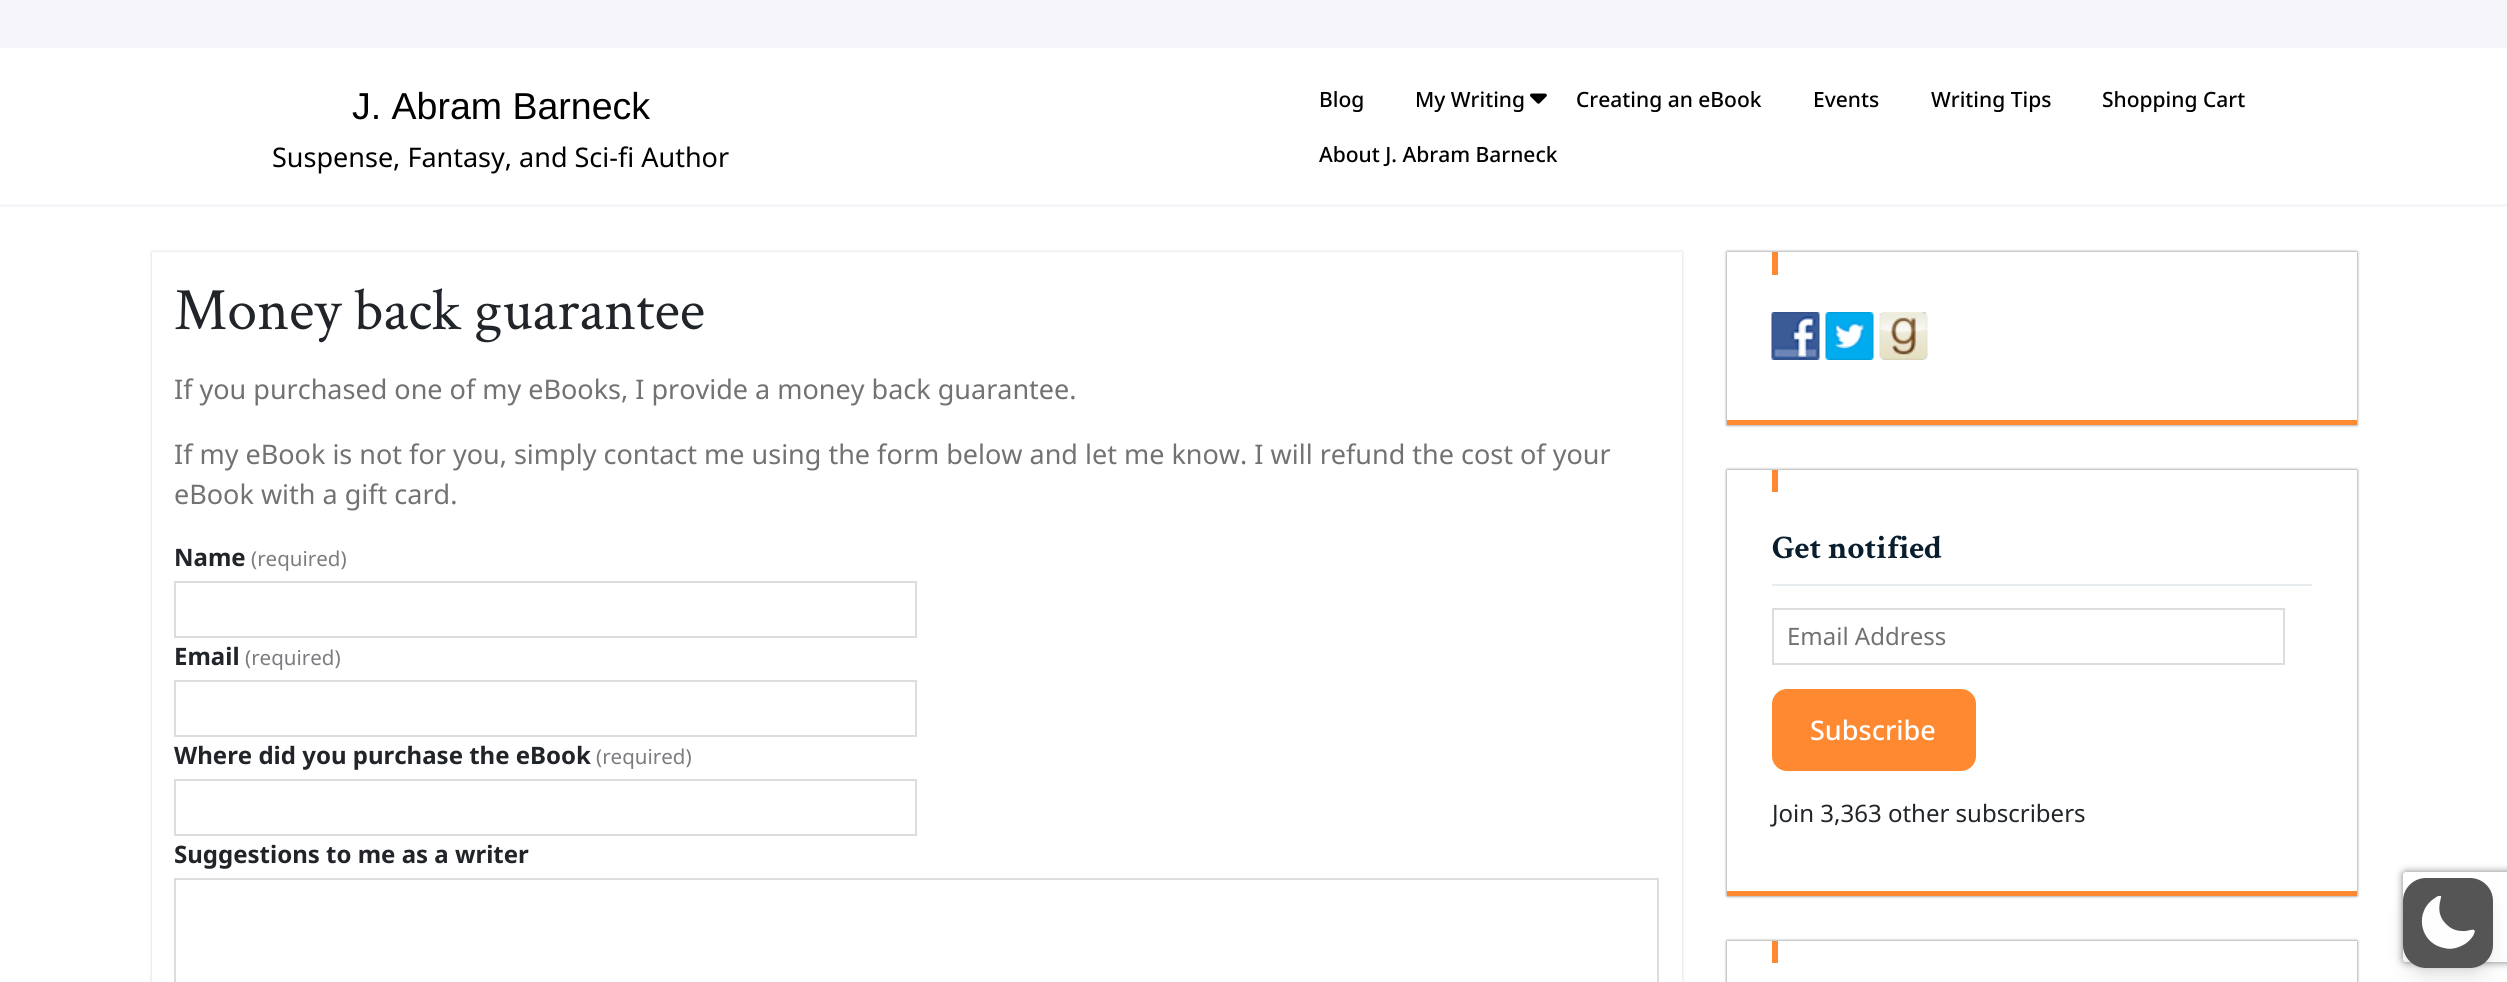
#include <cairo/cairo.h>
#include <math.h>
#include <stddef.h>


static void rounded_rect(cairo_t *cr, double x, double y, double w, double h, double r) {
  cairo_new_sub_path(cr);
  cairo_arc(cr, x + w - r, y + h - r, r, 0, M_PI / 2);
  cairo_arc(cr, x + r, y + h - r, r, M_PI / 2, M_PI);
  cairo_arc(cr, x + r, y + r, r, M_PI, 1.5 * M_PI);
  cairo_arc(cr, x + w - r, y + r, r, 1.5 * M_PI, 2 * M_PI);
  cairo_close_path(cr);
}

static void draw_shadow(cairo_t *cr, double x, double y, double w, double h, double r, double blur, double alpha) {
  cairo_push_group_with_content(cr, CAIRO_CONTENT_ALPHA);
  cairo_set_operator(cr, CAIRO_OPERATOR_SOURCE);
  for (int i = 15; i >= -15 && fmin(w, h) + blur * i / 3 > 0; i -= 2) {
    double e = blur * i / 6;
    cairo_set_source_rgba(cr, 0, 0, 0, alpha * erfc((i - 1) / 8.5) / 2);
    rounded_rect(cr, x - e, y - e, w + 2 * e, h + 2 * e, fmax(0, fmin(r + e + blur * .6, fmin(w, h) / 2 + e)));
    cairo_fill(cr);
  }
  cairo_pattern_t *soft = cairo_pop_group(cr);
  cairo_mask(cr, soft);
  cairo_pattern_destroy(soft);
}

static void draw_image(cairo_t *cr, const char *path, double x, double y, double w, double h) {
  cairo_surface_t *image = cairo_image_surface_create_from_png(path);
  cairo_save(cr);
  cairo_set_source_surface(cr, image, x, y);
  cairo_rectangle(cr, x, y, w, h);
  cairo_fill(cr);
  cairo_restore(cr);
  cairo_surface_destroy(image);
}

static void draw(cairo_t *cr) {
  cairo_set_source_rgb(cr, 1, 1, 1);
  cairo_paint(cr);
  cairo_set_source_rgb(cr, 245 / 255.0, 245 / 255.0, 250 / 255.0);
  cairo_rectangle(cr, 0, 0, 2507, 48);
  cairo_fill(cr);
  cairo_rectangle(cr, 0, 204, 2507, 3);
  cairo_fill(cr);
  draw_image(cr, "images/1.png", 1530, 93, 17, 11);
  cairo_set_source_rgb(cr, 207 / 255.0, 207 / 255.0, 207 / 255.0);
  draw_shadow(cr, 152, 252, 1530, 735, 0, 1.5, 1);
  cairo_set_source_rgb(cr, 1, 1, 1);
  cairo_rectangle(cr, 152, 252, 1530, 730);
  cairo_fill(cr);
  cairo_rectangle(cr, 175, 582, 741, 55);
  cairo_set_source_rgb(cr, 221 / 255.0, 221 / 255.0, 221 / 255.0);
  cairo_stroke(cr);
  cairo_rectangle(cr, 175, 681, 741, 55);
  cairo_stroke(cr);
  cairo_rectangle(cr, 175, 780, 741, 55);
  cairo_stroke(cr);
  cairo_rectangle(cr, 175, 879, 1483, 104);
  cairo_stroke(cr);
  cairo_save(cr);
  cairo_set_fill_rule(cr, CAIRO_FILL_RULE_EVEN_ODD);
  cairo_new_path(cr);
  cairo_move_to(cr, 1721, 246);
  cairo_line_to(cr, 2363, 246);
  cairo_line_to(cr, 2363, 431);
  cairo_line_to(cr, 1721, 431);
  cairo_close_path(cr);
  cairo_move_to(cr, 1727, 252);
  cairo_line_to(cr, 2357, 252);
  cairo_line_to(cr, 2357, 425);
  cairo_line_to(cr, 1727, 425);
  cairo_close_path(cr);
  cairo_clip(cr);
  cairo_set_source_rgb(cr, 114 / 255.0, 112 / 255.0, 112 / 255.0);
  draw_shadow(cr, 1727, 252, 630, 173, 0, 1.5, 1);
  cairo_restore(cr);
  cairo_set_source_rgb(cr, 1, 137 / 255.0, 48 / 255.0);
  cairo_rectangle(cr, 1727, 420, 630, 5);
  cairo_fill(cr);
  cairo_rectangle(cr, 1772, 252, 6, 23);
  cairo_fill(cr);
  draw_image(cr, "images/2.png", 1771, 312, 49, 48);
  draw_image(cr, "images/3.png", 1825, 312, 49, 48);
  draw_image(cr, "images/4.png", 1879, 312, 49, 48);
  cairo_save(cr);
  cairo_set_fill_rule(cr, CAIRO_FILL_RULE_EVEN_ODD);
  cairo_new_path(cr);
  cairo_move_to(cr, 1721, 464);
  cairo_line_to(cr, 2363, 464);
  cairo_line_to(cr, 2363, 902);
  cairo_line_to(cr, 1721, 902);
  cairo_close_path(cr);
  cairo_move_to(cr, 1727, 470);
  cairo_line_to(cr, 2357, 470);
  cairo_line_to(cr, 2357, 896);
  cairo_line_to(cr, 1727, 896);
  cairo_close_path(cr);
  cairo_clip(cr);
  cairo_set_source_rgb(cr, 114 / 255.0, 112 / 255.0, 112 / 255.0);
  draw_shadow(cr, 1727, 470, 630, 426, 0, 1.5, 1);
  cairo_restore(cr);
  cairo_rectangle(cr, 1727, 891, 630, 5);
  cairo_fill(cr);
  cairo_rectangle(cr, 1772, 470, 6, 22);
  cairo_fill(cr);
  cairo_set_source_rgb(cr, 231 / 255.0, 236 / 255.0, 239 / 255.0);
  cairo_rectangle(cr, 1772, 584, 540, 2);
  cairo_fill(cr);
  cairo_rectangle(cr, 1773, 609, 511, 55);
  cairo_set_source_rgb(cr, 221 / 255.0, 221 / 255.0, 221 / 255.0);
  cairo_stroke(cr);
  cairo_set_source_rgb(cr, 1, 137 / 255.0, 48 / 255.0);
  rounded_rect(cr, 1772, 689, 204, 82, 15);
  cairo_fill(cr);
  cairo_save(cr);
  cairo_set_fill_rule(cr, CAIRO_FILL_RULE_EVEN_ODD);
  cairo_new_path(cr);
  cairo_move_to(cr, 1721, 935);
  cairo_line_to(cr, 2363, 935);
  cairo_line_to(cr, 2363, 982);
  cairo_line_to(cr, 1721, 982);
  cairo_close_path(cr);
  cairo_move_to(cr, 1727, 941);
  cairo_line_to(cr, 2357, 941);
  cairo_line_to(cr, 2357, 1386);
  cairo_line_to(cr, 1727, 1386);
  cairo_close_path(cr);
  cairo_clip(cr);
  cairo_set_source_rgb(cr, 114 / 255.0, 112 / 255.0, 112 / 255.0);
  draw_shadow(cr, 1727, 941, 630, 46, 0, 1.5, 1);
  cairo_restore(cr);
  cairo_rectangle(cr, 1772, 941, 6, 22);
  cairo_fill(cr);
  cairo_save(cr);
  cairo_set_fill_rule(cr, CAIRO_FILL_RULE_EVEN_ODD);
  cairo_new_path(cr);
  cairo_move_to(cr, 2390, 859);
  cairo_line_to(cr, 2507, 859);
  cairo_line_to(cr, 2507, 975);
  cairo_line_to(cr, 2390, 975);
  cairo_close_path(cr);
  cairo_move_to(cr, 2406, 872);
  cairo_line_to(cr, 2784, 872);
  cairo_curve_to(cr, 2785.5, 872, 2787, 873.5, 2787, 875);
  cairo_line_to(cr, 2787, 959);
  cairo_curve_to(cr, 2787, 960.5, 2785.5, 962, 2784, 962);
  cairo_line_to(cr, 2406, 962);
  cairo_curve_to(cr, 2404.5, 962, 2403, 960.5, 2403, 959);
  cairo_line_to(cr, 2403, 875);
  cairo_curve_to(cr, 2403, 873.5, 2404.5, 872, 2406, 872);
  cairo_close_path(cr);
  cairo_clip(cr);
  cairo_set_source_rgb(cr, 128 / 255.0, 128 / 255.0, 128 / 255.0);
  draw_shadow(cr, 2403, 872, 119, 90, 3, 4, 1);
  cairo_restore(cr);
  cairo_set_source_rgb(cr, 0, 0, 0);
  draw_shadow(cr, 2409, 890, 78, 78, 17, 4.5, 0.1);
  draw_shadow(cr, 2408, 897, 81, 81, 18, 11, 0.1);
  cairo_set_source_rgb(cr, 85 / 255.0, 85 / 255.0, 85 / 255.0);
  rounded_rect(cr, 2403, 878, 90, 90, 23);
  cairo_fill(cr);
  cairo_save(cr);
  cairo_rectangle(cr, 2421, 896, 54, 54);
  cairo_clip(cr);
  cairo_set_source_rgb(cr, 254 / 255.0, 254 / 255.0, 254 / 255.0);
  cairo_set_fill_rule(cr, CAIRO_FILL_RULE_EVEN_ODD);
  cairo_new_path(cr);
  cairo_move_to(cr, 2441, 896);
  cairo_curve_to(cr, 2442, 898, 2434, 912, 2446, 924);
  cairo_curve_to(cr, 2451, 929, 2456, 931, 2463, 931);
  cairo_curve_to(cr, 2468, 932, 2479, 925, 2473, 936);
  cairo_curve_to(cr, 2471, 939, 2468, 942, 2465, 944);
  cairo_curve_to(cr, 2458, 948, 2451, 950, 2444, 948);
  cairo_curve_to(cr, 2419, 943, 2414, 911, 2435, 898);
  cairo_curve_to(cr, 2436, 897, 2439, 895, 2441, 896);
  cairo_close_path(cr);
  cairo_fill(cr);
  cairo_restore(cr);
  cairo_select_font_face(cr, "Liberation Sans", CAIRO_FONT_SLANT_NORMAL, CAIRO_FONT_WEIGHT_NORMAL);
  cairo_set_font_size(cr, 37.5);
  cairo_set_source_rgb(cr, 0, 0, 0);
  cairo_move_to(cr, 352, 119);
  cairo_show_text(cr, "J. Abram Barneck");
  cairo_select_font_face(cr, "Noto Sans", CAIRO_FONT_SLANT_NORMAL, CAIRO_FONT_WEIGHT_NORMAL);
  cairo_set_font_size(cr, 27);
  cairo_move_to(cr, 272, 167);
  cairo_show_text(cr, "Suspense, Fantasy, and Sci-fi Author");
  cairo_select_font_face(cr, "Noto Sans Medium", CAIRO_FONT_SLANT_NORMAL, CAIRO_FONT_WEIGHT_NORMAL);
  cairo_set_font_size(cr, 21);
  cairo_move_to(cr, 1319, 107);
  cairo_show_text(cr, "Blog");
  cairo_move_to(cr, 1415, 107);
  cairo_show_text(cr, "My Writing");
  cairo_move_to(cr, 1576, 107);
  cairo_show_text(cr, "Creating an eBook");
  cairo_move_to(cr, 1813, 107);
  cairo_show_text(cr, "Events");
  cairo_move_to(cr, 1931, 107);
  cairo_show_text(cr, "Writing Tips");
  cairo_move_to(cr, 2102, 107);
  cairo_show_text(cr, "Shopping Cart");
  cairo_move_to(cr, 1319, 162);
  cairo_show_text(cr, "About J. Abram Barneck");
  cairo_select_font_face(cr, "Crimson Text", CAIRO_FONT_SLANT_NORMAL, CAIRO_FONT_WEIGHT_NORMAL);
  cairo_set_font_size(cr, 60);
  cairo_set_source_rgb(cr, 33 / 255.0, 37 / 255.0, 41 / 255.0);
  cairo_move_to(cr, 174, 329);
  cairo_show_text(cr, "Money back guarantee");
  cairo_select_font_face(cr, "Noto Sans", CAIRO_FONT_SLANT_NORMAL, CAIRO_FONT_WEIGHT_NORMAL);
  cairo_set_font_size(cr, 27);
  cairo_set_source_rgb(cr, 114 / 255.0, 114 / 255.0, 114 / 255.0);
  cairo_move_to(cr, 174, 399);
  cairo_show_text(cr, "If you purchased one of my eBooks, I provide a money back guarantee.");
  cairo_move_to(cr, 174, 464);
  cairo_show_text(cr, "If my eBook is not for you, simply contact me using the form below and let me know. I will refund the cost of your");
  cairo_move_to(cr, 174, 504);
  cairo_show_text(cr, "eBook with a gift card.");
  cairo_select_font_face(cr, "Noto Sans", CAIRO_FONT_SLANT_NORMAL, CAIRO_FONT_WEIGHT_BOLD);
  cairo_set_font_size(cr, 24);
  cairo_set_source_rgb(cr, 33 / 255.0, 37 / 255.0, 41 / 255.0);
  cairo_move_to(cr, 174, 566);
  cairo_show_text(cr, "Name");
  cairo_select_font_face(cr, "Noto Sans", CAIRO_FONT_SLANT_NORMAL, CAIRO_FONT_WEIGHT_NORMAL);
  cairo_set_font_size(cr, 20.5);
  cairo_set_source_rgb(cr, 122 / 255.0, 124 / 255.0, 127 / 255.0);
  cairo_move_to(cr, 251, 566);
  cairo_show_text(cr, "(required)");
  cairo_select_font_face(cr, "Noto Sans", CAIRO_FONT_SLANT_NORMAL, CAIRO_FONT_WEIGHT_BOLD);
  cairo_set_font_size(cr, 24);
  cairo_set_source_rgb(cr, 33 / 255.0, 37 / 255.0, 41 / 255.0);
  cairo_move_to(cr, 174, 665);
  cairo_show_text(cr, "Email");
  cairo_select_font_face(cr, "Noto Sans", CAIRO_FONT_SLANT_NORMAL, CAIRO_FONT_WEIGHT_NORMAL);
  cairo_set_font_size(cr, 20.5);
  cairo_set_source_rgb(cr, 122 / 255.0, 124 / 255.0, 127 / 255.0);
  cairo_move_to(cr, 245, 665);
  cairo_show_text(cr, "(required)");
  cairo_select_font_face(cr, "Noto Sans", CAIRO_FONT_SLANT_NORMAL, CAIRO_FONT_WEIGHT_BOLD);
  cairo_set_font_size(cr, 24);
  cairo_set_source_rgb(cr, 33 / 255.0, 37 / 255.0, 41 / 255.0);
  cairo_move_to(cr, 174, 764);
  cairo_show_text(cr, "Where did you purchase the eBook");
  cairo_select_font_face(cr, "Noto Sans", CAIRO_FONT_SLANT_NORMAL, CAIRO_FONT_WEIGHT_NORMAL);
  cairo_set_font_size(cr, 20.5);
  cairo_set_source_rgb(cr, 122 / 255.0, 124 / 255.0, 127 / 255.0);
  cairo_move_to(cr, 596, 764);
  cairo_show_text(cr, "(required)");
  cairo_select_font_face(cr, "Noto Sans", CAIRO_FONT_SLANT_NORMAL, CAIRO_FONT_WEIGHT_BOLD);
  cairo_set_font_size(cr, 24);
  cairo_set_source_rgb(cr, 33 / 255.0, 37 / 255.0, 41 / 255.0);
  cairo_move_to(cr, 174, 863);
  cairo_show_text(cr, "Suggestions to me as a writer");
  cairo_select_font_face(cr, "Crimson Text", CAIRO_FONT_SLANT_NORMAL, CAIRO_FONT_WEIGHT_BOLD);
  cairo_set_font_size(cr, 33);
  cairo_set_source_rgb(cr, 9 / 255.0, 29 / 255.0, 45 / 255.0);
  cairo_move_to(cr, 1772, 558);
  cairo_show_text(cr, "Get notified");
  cairo_select_font_face(cr, "Noto Sans", CAIRO_FONT_SLANT_NORMAL, CAIRO_FONT_WEIGHT_NORMAL);
  cairo_set_font_size(cr, 24);
  cairo_set_source_rgb(cr, 114 / 255.0, 114 / 255.0, 114 / 255.0);
  cairo_move_to(cr, 1787, 645);
  cairo_show_text(cr, "Email Address");
  cairo_select_font_face(cr, "Noto Sans Medium", CAIRO_FONT_SLANT_NORMAL, CAIRO_FONT_WEIGHT_NORMAL);
  cairo_set_font_size(cr, 27);
  cairo_set_source_rgb(cr, 1, 1, 1);
  cairo_move_to(cr, 1810, 740);
  cairo_show_text(cr, "Subscribe");
  cairo_select_font_face(cr, "Noto Sans", CAIRO_FONT_SLANT_NORMAL, CAIRO_FONT_WEIGHT_NORMAL);
  cairo_set_font_size(cr, 24);
  cairo_set_source_rgb(cr, 33 / 255.0, 37 / 255.0, 41 / 255.0);
  cairo_move_to(cr, 1772, 822);
  cairo_show_text(cr, "Join 3,363 other subscribers");
}

int main(void) {
  cairo_surface_t *surface = cairo_image_surface_create(CAIRO_FORMAT_RGB24, 2507, 982);
  cairo_t *cr = cairo_create(surface);
  cairo_font_options_t *options = cairo_font_options_create();
  cairo_font_options_set_hint_metrics(options, CAIRO_HINT_METRICS_OFF);
  cairo_font_options_set_hint_style(options, CAIRO_HINT_STYLE_NONE);
  cairo_set_font_options(cr, options);
  cairo_set_miter_limit(cr, 4);
  draw(cr);
  cairo_surface_write_to_png(surface, "out.png");
  cairo_font_options_destroy(options);
  cairo_destroy(cr);
  cairo_surface_destroy(surface);
  return 0;
}
